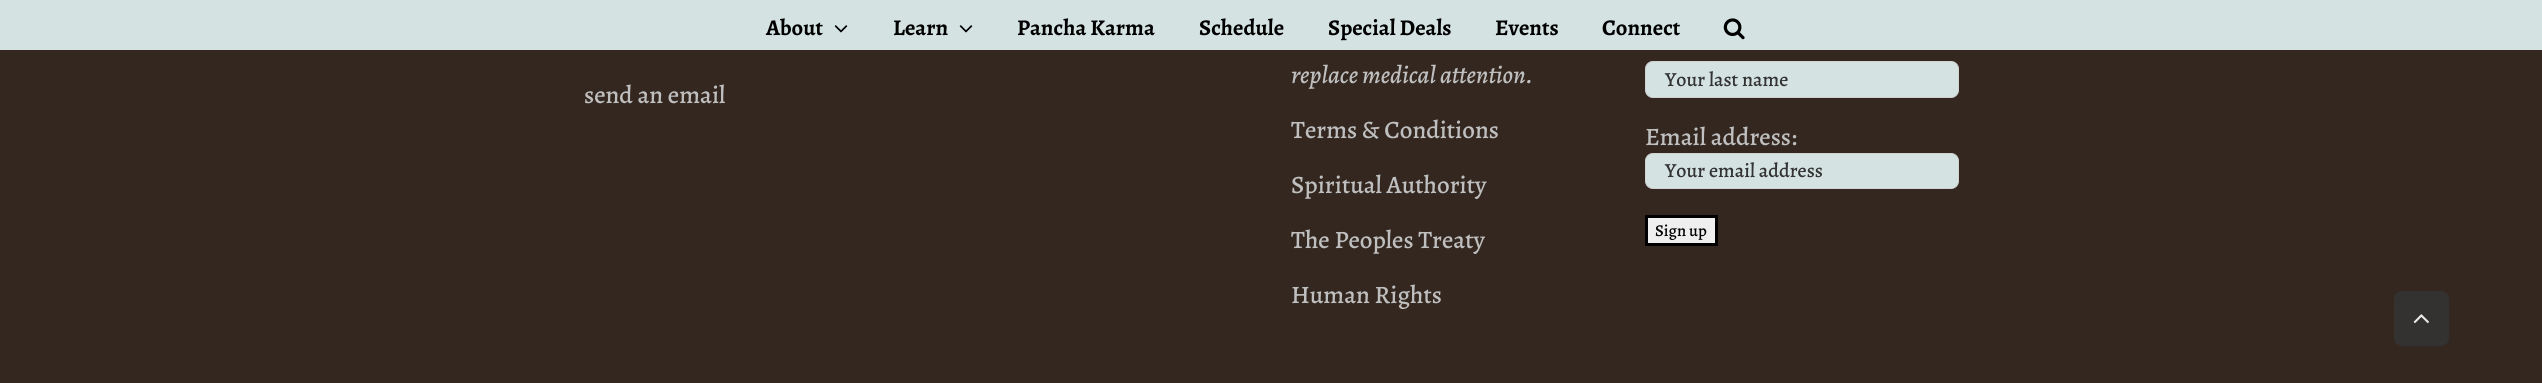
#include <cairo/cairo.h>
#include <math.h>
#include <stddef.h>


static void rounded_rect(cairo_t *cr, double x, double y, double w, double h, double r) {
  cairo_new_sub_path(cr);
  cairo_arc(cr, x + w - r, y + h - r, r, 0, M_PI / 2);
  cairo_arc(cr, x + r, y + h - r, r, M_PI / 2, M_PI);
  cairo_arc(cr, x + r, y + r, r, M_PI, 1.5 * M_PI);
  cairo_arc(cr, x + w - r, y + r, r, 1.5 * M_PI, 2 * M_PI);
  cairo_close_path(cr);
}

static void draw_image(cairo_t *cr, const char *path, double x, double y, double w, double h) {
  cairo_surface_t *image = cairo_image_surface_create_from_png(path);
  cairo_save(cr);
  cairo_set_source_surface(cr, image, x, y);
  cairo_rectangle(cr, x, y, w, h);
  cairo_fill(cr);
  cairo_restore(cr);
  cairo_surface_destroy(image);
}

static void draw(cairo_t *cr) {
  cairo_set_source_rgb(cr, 51 / 255.0, 39 / 255.0, 32 / 255.0);
  cairo_paint(cr);
  cairo_set_source_rgb(cr, 212 / 255.0, 227 / 255.0, 226 / 255.0);
  cairo_rectangle(cr, 0, 0, 2542, 50);
  cairo_fill(cr);
  draw_image(cr, "images/1.png", 834, 25, 14, 8);
  draw_image(cr, "images/1.png", 959, 25, 14, 8);
  draw_image(cr, "images/2.png", 1723, 18, 22, 22);
  rounded_rect(cr, 1645.5, 61.5, 313, 36, 7.5);
  cairo_fill_preserve(cr);
  cairo_set_source_rgb(cr, 210 / 255.0, 210 / 255.0, 210 / 255.0);
  cairo_set_line_width(cr, 1);
  cairo_stroke(cr);
  cairo_set_source_rgb(cr, 212 / 255.0, 227 / 255.0, 226 / 255.0);
  rounded_rect(cr, 1645.5, 153.5, 313, 35, 7.5);
  cairo_fill_preserve(cr);
  cairo_set_source_rgb(cr, 210 / 255.0, 210 / 255.0, 210 / 255.0);
  cairo_stroke(cr);
  cairo_set_source_rgb(cr, 239 / 255.0, 239 / 255.0, 239 / 255.0);
  cairo_rectangle(cr, 1646.5, 216.5, 70, 28);
  cairo_fill_preserve(cr);
  cairo_set_source_rgb(cr, 0, 0, 0);
  cairo_set_line_width(cr, 3);
  cairo_stroke(cr);
  cairo_set_source_rgb(cr, 51 / 255.0, 50 / 255.0, 49 / 255.0);
  rounded_rect(cr, 2394, 291, 55, 55, 8);
  cairo_fill(cr);
  draw_image(cr, "images/3.png", 2413, 314, 16, 10);
  cairo_select_font_face(cr, "Alegreya", CAIRO_FONT_SLANT_NORMAL, CAIRO_FONT_WEIGHT_BOLD);
  cairo_set_font_size(cr, 22.5);
  cairo_set_source_rgb(cr, 0, 0, 0);
  cairo_move_to(cr, 766, 35);
  cairo_show_text(cr, "About");
  cairo_move_to(cr, 893, 35);
  cairo_show_text(cr, "Learn");
  cairo_move_to(cr, 1017, 35);
  cairo_show_text(cr, "Pancha Karma");
  cairo_move_to(cr, 1199, 35);
  cairo_show_text(cr, "Schedule");
  cairo_move_to(cr, 1328, 35);
  cairo_show_text(cr, "Special Deals");
  cairo_move_to(cr, 1495, 35);
  cairo_show_text(cr, "Events");
  cairo_move_to(cr, 1602, 35);
  cairo_show_text(cr, "Connect");
  cairo_select_font_face(cr, "Alegreya Medium", CAIRO_FONT_SLANT_NORMAL, CAIRO_FONT_WEIGHT_NORMAL);
  cairo_set_font_size(cr, 25);
  cairo_set_source_rgb(cr, 191 / 255.0, 191 / 255.0, 191 / 255.0);
  cairo_move_to(cr, 584, 103);
  cairo_show_text(cr, "send an email");
  cairo_select_font_face(cr, "Alegreya Medium", CAIRO_FONT_SLANT_ITALIC, CAIRO_FONT_WEIGHT_NORMAL);
  cairo_move_to(cr, 1291, 83);
  cairo_show_text(cr, "replace medical attention.");
  cairo_select_font_face(cr, "Alegreya Medium", CAIRO_FONT_SLANT_NORMAL, CAIRO_FONT_WEIGHT_NORMAL);
  cairo_move_to(cr, 1291, 138);
  cairo_show_text(cr, "Terms & Conditions");
  cairo_move_to(cr, 1291, 193);
  cairo_show_text(cr, "Spiritual Authority");
  cairo_move_to(cr, 1291, 248);
  cairo_show_text(cr, "The Peoples Treaty");
  cairo_move_to(cr, 1291, 303);
  cairo_show_text(cr, "Human Rights");
  cairo_set_font_size(cr, 20);
  cairo_set_source_rgb(cr, 51 / 255.0, 51 / 255.0, 51 / 255.0);
  cairo_move_to(cr, 1665, 86);
  cairo_show_text(cr, "Your last name");
  cairo_set_font_size(cr, 25);
  cairo_set_source_rgb(cr, 191 / 255.0, 191 / 255.0, 191 / 255.0);
  cairo_move_to(cr, 1645, 145);
  cairo_show_text(cr, "Email address:");
  cairo_set_font_size(cr, 20);
  cairo_set_source_rgb(cr, 51 / 255.0, 51 / 255.0, 51 / 255.0);
  cairo_move_to(cr, 1665, 177);
  cairo_show_text(cr, "Your email address");
  cairo_set_font_size(cr, 16.5);
  cairo_set_source_rgb(cr, 0, 0, 0);
  cairo_move_to(cr, 1655, 236);
  cairo_show_text(cr, "Sign up");
}

int main(void) {
  cairo_surface_t *surface = cairo_image_surface_create(CAIRO_FORMAT_RGB24, 2542, 383);
  cairo_t *cr = cairo_create(surface);
  cairo_font_options_t *options = cairo_font_options_create();
  cairo_font_options_set_hint_metrics(options, CAIRO_HINT_METRICS_OFF);
  cairo_font_options_set_hint_style(options, CAIRO_HINT_STYLE_NONE);
  cairo_set_font_options(cr, options);
  cairo_set_miter_limit(cr, 4);
  draw(cr);
  cairo_surface_write_to_png(surface, "out.png");
  cairo_font_options_destroy(options);
  cairo_destroy(cr);
  cairo_surface_destroy(surface);
  return 0;
}
